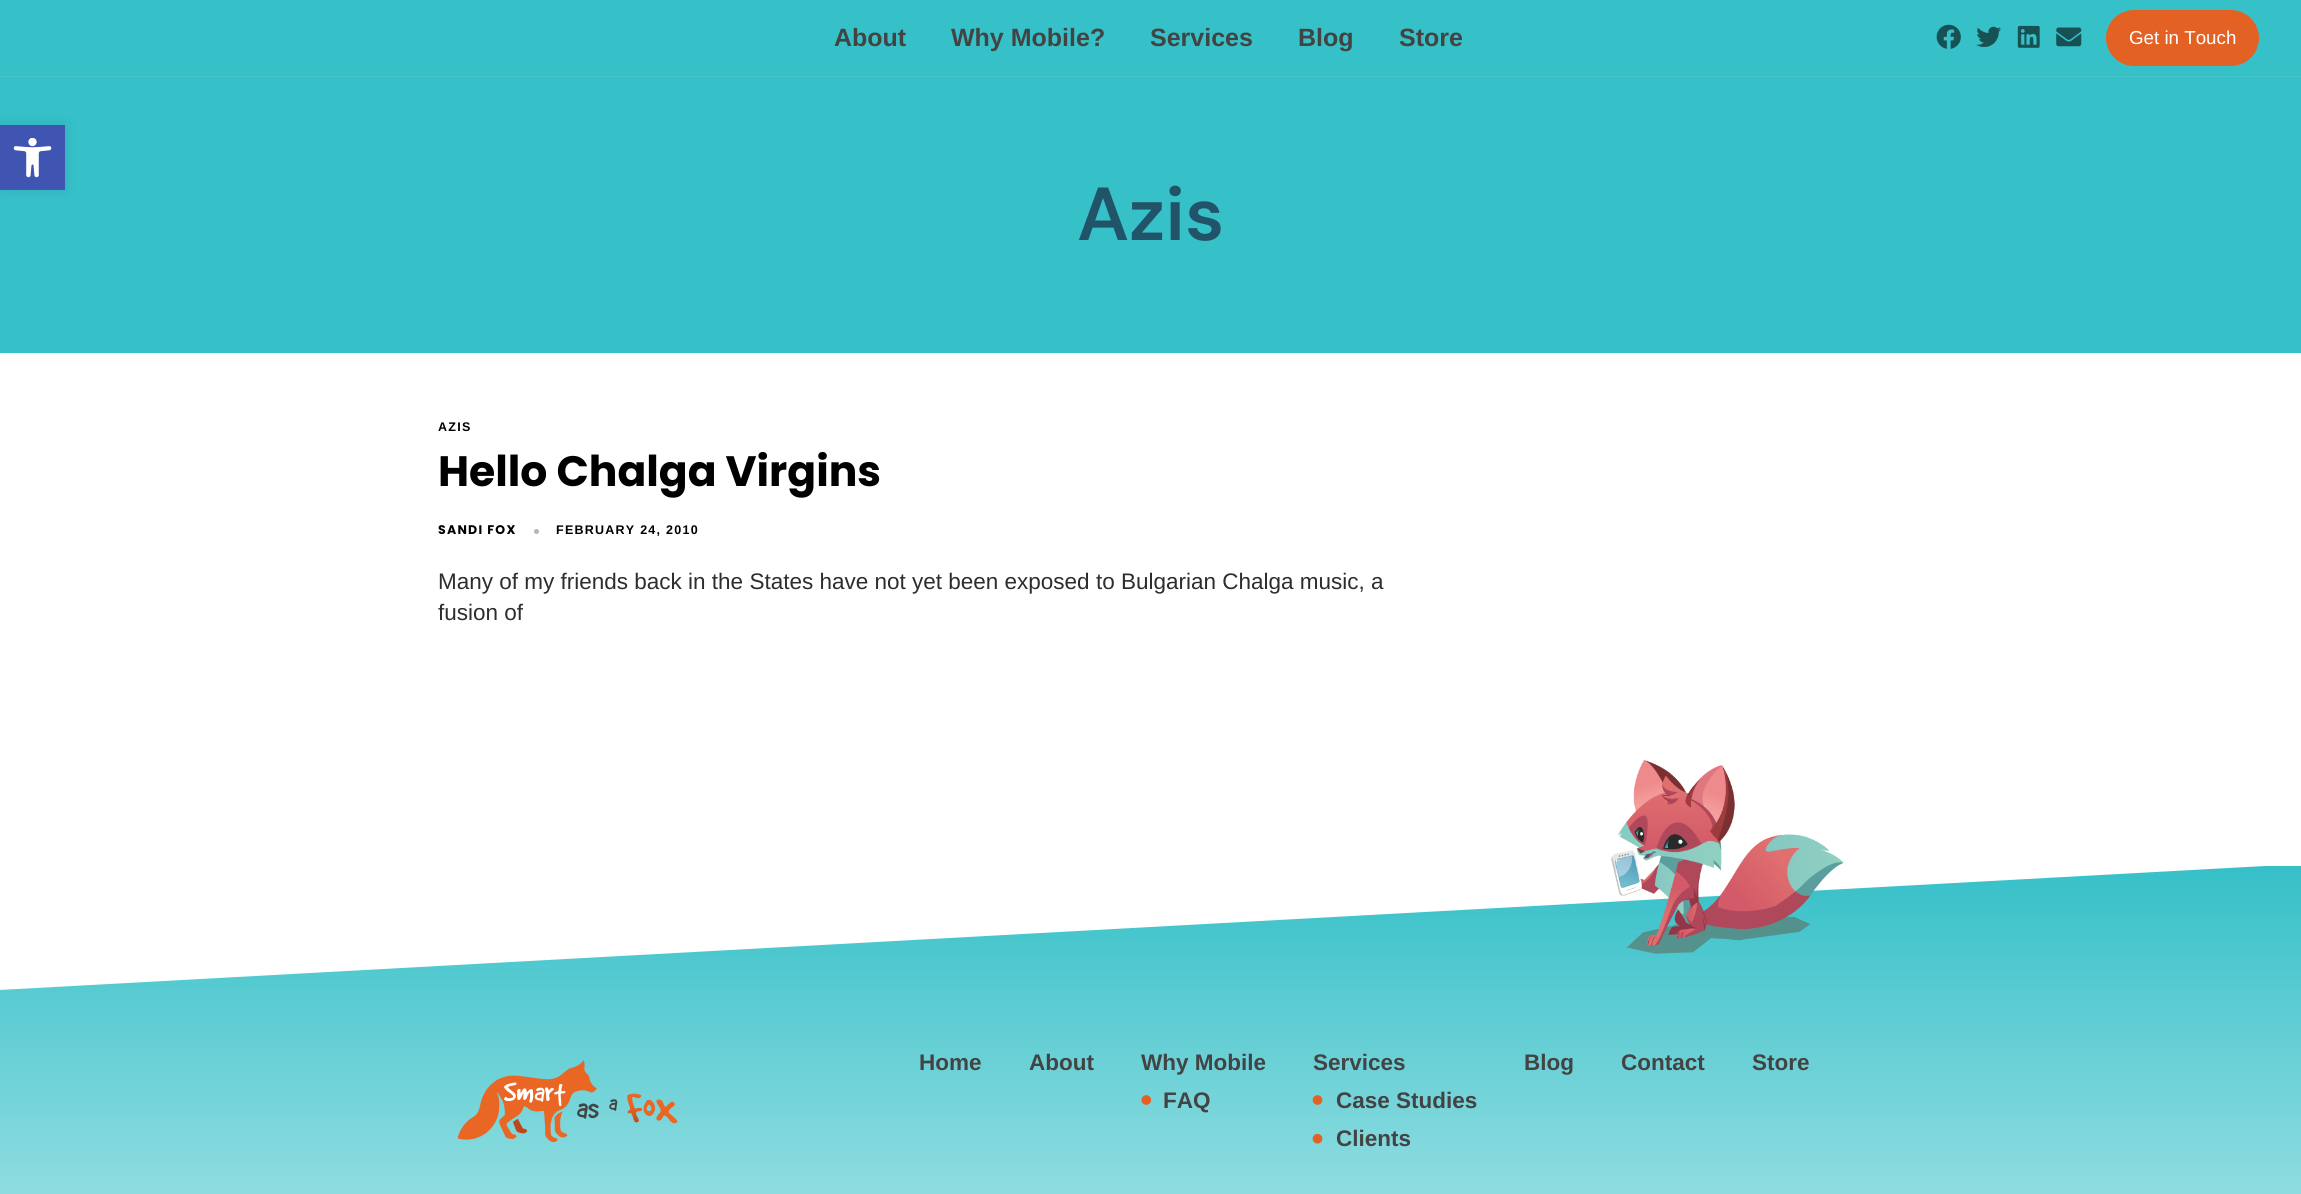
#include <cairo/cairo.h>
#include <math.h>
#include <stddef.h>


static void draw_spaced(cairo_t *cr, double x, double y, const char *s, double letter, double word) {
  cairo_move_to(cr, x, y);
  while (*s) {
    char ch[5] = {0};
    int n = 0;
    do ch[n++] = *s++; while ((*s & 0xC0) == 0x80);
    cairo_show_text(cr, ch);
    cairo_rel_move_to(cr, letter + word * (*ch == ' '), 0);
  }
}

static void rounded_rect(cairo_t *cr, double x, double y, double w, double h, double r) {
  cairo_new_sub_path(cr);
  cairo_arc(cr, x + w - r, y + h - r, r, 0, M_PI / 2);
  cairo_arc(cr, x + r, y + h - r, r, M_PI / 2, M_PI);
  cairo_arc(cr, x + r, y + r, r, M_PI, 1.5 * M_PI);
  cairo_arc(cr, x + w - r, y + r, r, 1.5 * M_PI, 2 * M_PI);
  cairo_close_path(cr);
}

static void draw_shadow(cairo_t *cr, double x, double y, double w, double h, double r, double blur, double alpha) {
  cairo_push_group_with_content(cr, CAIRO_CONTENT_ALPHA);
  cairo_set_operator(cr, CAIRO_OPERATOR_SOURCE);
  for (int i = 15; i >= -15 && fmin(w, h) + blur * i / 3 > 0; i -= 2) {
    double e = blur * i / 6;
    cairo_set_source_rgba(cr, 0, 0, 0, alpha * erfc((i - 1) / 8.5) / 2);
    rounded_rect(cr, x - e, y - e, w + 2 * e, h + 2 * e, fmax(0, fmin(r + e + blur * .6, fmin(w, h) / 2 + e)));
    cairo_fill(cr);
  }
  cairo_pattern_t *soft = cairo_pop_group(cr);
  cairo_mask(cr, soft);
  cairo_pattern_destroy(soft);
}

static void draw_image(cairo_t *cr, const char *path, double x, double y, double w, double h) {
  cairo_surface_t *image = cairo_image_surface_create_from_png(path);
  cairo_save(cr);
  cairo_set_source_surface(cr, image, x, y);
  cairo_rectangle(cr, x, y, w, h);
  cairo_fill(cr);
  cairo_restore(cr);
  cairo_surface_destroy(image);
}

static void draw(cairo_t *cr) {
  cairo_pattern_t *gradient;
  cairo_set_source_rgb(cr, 1, 1, 1);
  cairo_paint(cr);
  cairo_set_source_rgb(cr, 54 / 255.0, 192 / 255.0, 200 / 255.0);
  cairo_rectangle(cr, 0, 0, 2301, 353);
  cairo_fill(cr);
  cairo_set_source_rgb(cr, 0, 0, 0);
  draw_shadow(cr, 0, 125, 65, 65, 0, 6, 0.1);
  cairo_set_source_rgb(cr, 64 / 255.0, 84 / 255.0, 178 / 255.0);
  cairo_rectangle(cr, 0, 125, 65, 65);
  cairo_fill(cr);
  draw_image(cr, "images/1.png", 13, 138, 39, 40);
  cairo_set_source_rgb(cr, 72 / 255.0, 198 / 255.0, 205 / 255.0);
  cairo_rectangle(cr, 0, 76, 2301, 1);
  cairo_fill(cr);
  draw_image(cr, "images/2.png", 1936, 24, 25, 25);
  draw_image(cr, "images/3.png", 1976, 26, 25, 21);
  draw_image(cr, "images/4.png", 2017, 25, 23, 23);
  draw_image(cr, "images/5.png", 2056, 27, 26, 20);
  cairo_set_source_rgb(cr, 227 / 255.0, 98 / 255.0, 35 / 255.0);
  rounded_rect(cr, 2106, 10, 153, 56, 28);
  cairo_fill(cr);
  cairo_set_source_rgb(cr, 182 / 255.0, 182 / 255.0, 182 / 255.0);
  cairo_arc(cr, 536.5, 531.5, 2.5, 0, 2 * M_PI);
  cairo_fill(cr);
  gradient = cairo_pattern_create_linear(1151, 866, 1151, 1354);
  cairo_pattern_add_color_stop_rgba(gradient, 0, 54 / 255.0, 192 / 255.0, 200 / 255.0, 1);
  cairo_pattern_add_color_stop_rgba(gradient, 1, 185 / 255.0, 234 / 255.0, 236 / 255.0, 1);
  cairo_set_source(cr, gradient);
  cairo_pattern_destroy(gradient);
  cairo_rectangle(cr, 0, 866, 2301, 328);
  cairo_fill(cr);
  cairo_save(cr);
  cairo_rectangle(cr, 0, 865, 2301, 126);
  cairo_clip(cr);
  cairo_set_source_rgb(cr, 1, 1, 1);
  cairo_new_path(cr);
  cairo_move_to(cr, -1, 864);
  cairo_line_to(cr, -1, 990);
  cairo_line_to(cr, 2301, 864);
  cairo_close_path(cr);
  cairo_fill(cr);
  cairo_restore(cr);
  draw_image(cr, "images/6.png", 1611, 760, 233, 194);
  draw_image(cr, "images/7.png", 458, 1060, 220, 82);
  draw_image(cr, "images/8.png", 1141, 1095, 11, 10);
  draw_image(cr, "images/9.png", 1312, 1095, 11, 10);
  draw_image(cr, "images/10.png", 1312, 1133, 11, 11);
  cairo_select_font_face(cr, "Liberation Sans", CAIRO_FONT_SLANT_NORMAL, CAIRO_FONT_WEIGHT_BOLD);
  cairo_set_font_size(cr, 25);
  cairo_set_source_rgb(cr, 67 / 255.0, 67 / 255.0, 67 / 255.0);
  cairo_move_to(cr, 834, 46);
  cairo_show_text(cr, "About");
  cairo_move_to(cr, 951, 46);
  cairo_show_text(cr, "Why Mobile?");
  cairo_move_to(cr, 1150, 46);
  cairo_show_text(cr, "Services");
  cairo_move_to(cr, 1298, 46);
  cairo_show_text(cr, "Blog");
  cairo_move_to(cr, 1399, 46);
  cairo_show_text(cr, "Store");
  cairo_select_font_face(cr, "Liberation Sans", CAIRO_FONT_SLANT_NORMAL, CAIRO_FONT_WEIGHT_NORMAL);
  cairo_set_font_size(cr, 18.75);
  cairo_set_source_rgb(cr, 1, 1, 1);
  cairo_move_to(cr, 2129, 44);
  cairo_show_text(cr, "Get in Touch");
  cairo_select_font_face(cr, "DM Sans SemiBold", CAIRO_FONT_SLANT_NORMAL, CAIRO_FONT_WEIGHT_NORMAL);
  cairo_set_font_size(cr, 75);
  cairo_set_source_rgb(cr, 34 / 255.0, 84 / 255.0, 105 / 255.0);
  cairo_move_to(cr, 1077, 240);
  cairo_show_text(cr, "Azis");
  cairo_select_font_face(cr, "Liberation Sans", CAIRO_FONT_SLANT_NORMAL, CAIRO_FONT_WEIGHT_BOLD);
  cairo_set_font_size(cr, 12.5);
  cairo_set_source_rgb(cr, 0, 0, 0);
  draw_spaced(cr, 438, 431, "AZIS", 1.25, 0);
  cairo_select_font_face(cr, "Poppins", CAIRO_FONT_SLANT_NORMAL, CAIRO_FONT_WEIGHT_BOLD);
  cairo_set_font_size(cr, 42.5);
  cairo_move_to(cr, 438, 486);
  cairo_show_text(cr, "Hello Chalga Virgins");
  cairo_set_font_size(cr, 12.5);
  draw_spaced(cr, 438, 534, "SANDI FOX", 1.25, 0);
  cairo_select_font_face(cr, "Liberation Sans", CAIRO_FONT_SLANT_NORMAL, CAIRO_FONT_WEIGHT_BOLD);
  draw_spaced(cr, 556, 534, "FEBRUARY 24, 2010", 1.25, 0);
  cairo_select_font_face(cr, "Liberation Sans", CAIRO_FONT_SLANT_NORMAL, CAIRO_FONT_WEIGHT_NORMAL);
  cairo_set_font_size(cr, 22.5);
  cairo_set_source_rgb(cr, 45 / 255.0, 45 / 255.0, 45 / 255.0);
  cairo_move_to(cr, 438, 589);
  cairo_show_text(cr, "Many of my friends back in the States have not yet been exposed to Bulgarian Chalga music, a");
  cairo_move_to(cr, 438, 620);
  cairo_show_text(cr, "fusion of");
  cairo_select_font_face(cr, "Liberation Sans", CAIRO_FONT_SLANT_NORMAL, CAIRO_FONT_WEIGHT_BOLD);
  cairo_set_source_rgb(cr, 67 / 255.0, 67 / 255.0, 67 / 255.0);
  cairo_move_to(cr, 919, 1070);
  cairo_show_text(cr, "Home");
  cairo_move_to(cr, 1029, 1070);
  cairo_show_text(cr, "About");
  cairo_move_to(cr, 1141, 1070);
  cairo_show_text(cr, "Why Mobile");
  cairo_move_to(cr, 1163, 1108);
  cairo_show_text(cr, "FAQ");
  cairo_move_to(cr, 1313, 1070);
  cairo_show_text(cr, "Services");
  cairo_move_to(cr, 1336, 1108);
  cairo_show_text(cr, "Case Studies");
  cairo_move_to(cr, 1336, 1146);
  cairo_show_text(cr, "Clients");
  cairo_move_to(cr, 1524, 1070);
  cairo_show_text(cr, "Blog");
  cairo_move_to(cr, 1621, 1070);
  cairo_show_text(cr, "Contact");
  cairo_move_to(cr, 1752, 1070);
  cairo_show_text(cr, "Store");
}

int main(void) {
  cairo_surface_t *surface = cairo_image_surface_create(CAIRO_FORMAT_RGB24, 2301, 1194);
  cairo_t *cr = cairo_create(surface);
  cairo_font_options_t *options = cairo_font_options_create();
  cairo_font_options_set_hint_metrics(options, CAIRO_HINT_METRICS_OFF);
  cairo_font_options_set_hint_style(options, CAIRO_HINT_STYLE_NONE);
  cairo_set_font_options(cr, options);
  cairo_set_miter_limit(cr, 4);
  draw(cr);
  cairo_surface_write_to_png(surface, "out.png");
  cairo_font_options_destroy(options);
  cairo_destroy(cr);
  cairo_surface_destroy(surface);
  return 0;
}
